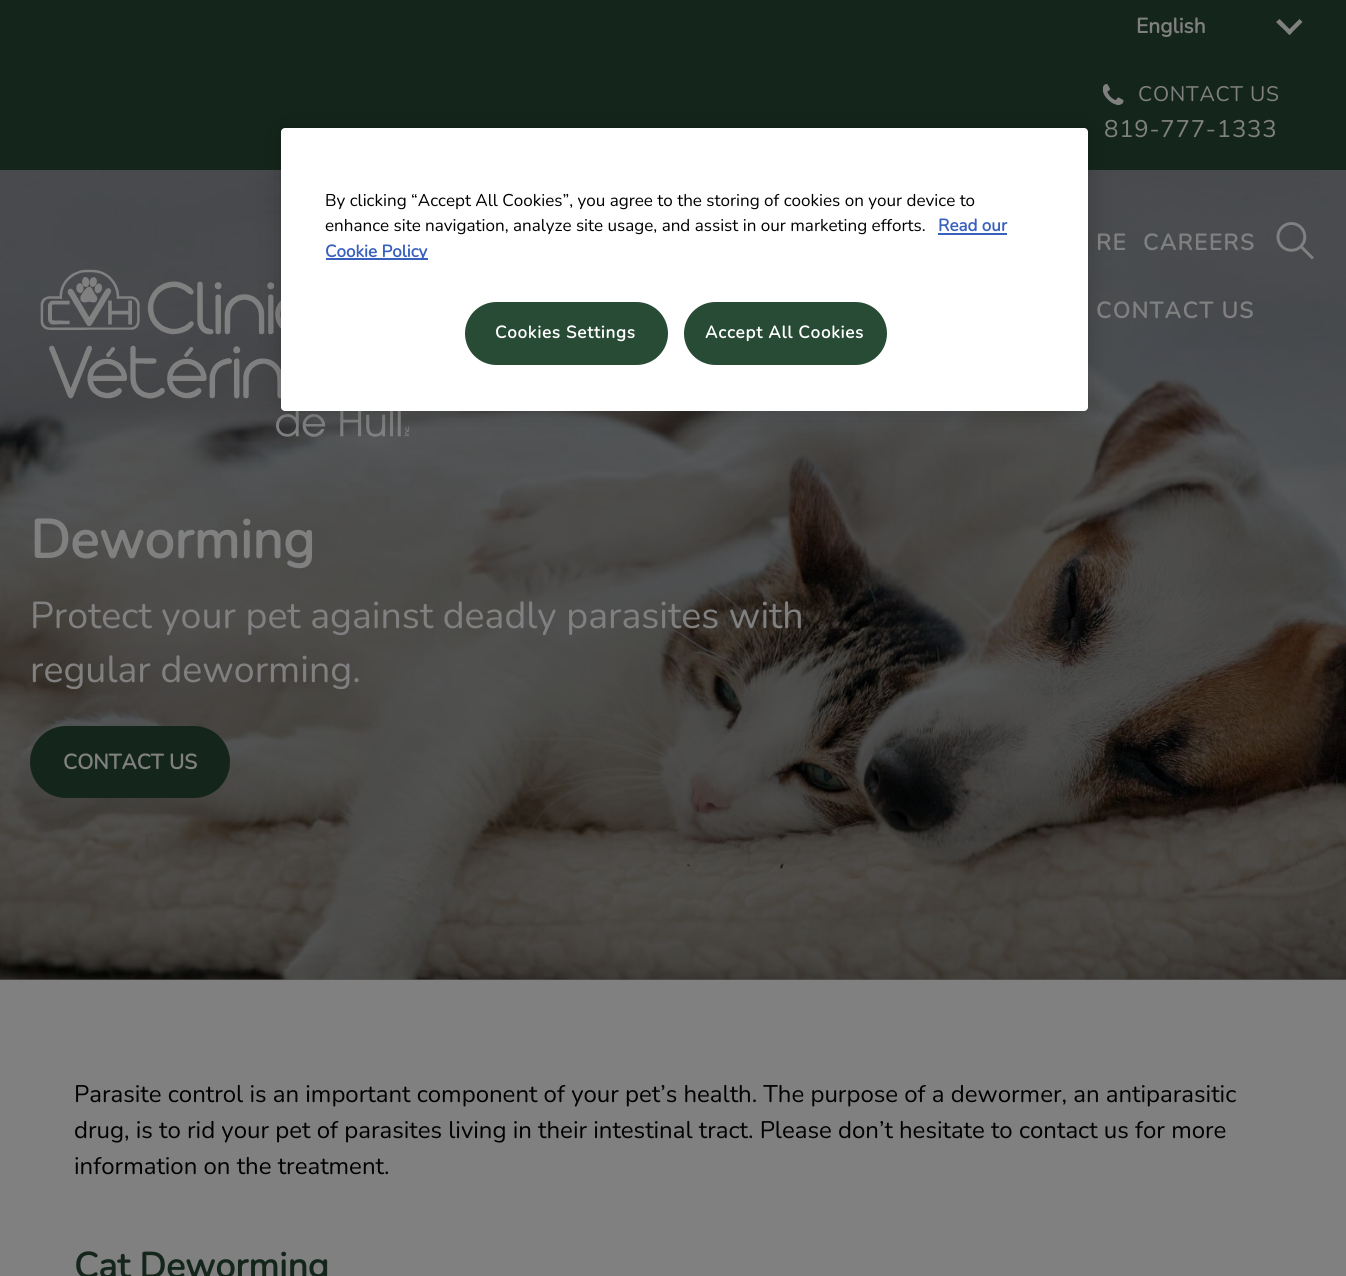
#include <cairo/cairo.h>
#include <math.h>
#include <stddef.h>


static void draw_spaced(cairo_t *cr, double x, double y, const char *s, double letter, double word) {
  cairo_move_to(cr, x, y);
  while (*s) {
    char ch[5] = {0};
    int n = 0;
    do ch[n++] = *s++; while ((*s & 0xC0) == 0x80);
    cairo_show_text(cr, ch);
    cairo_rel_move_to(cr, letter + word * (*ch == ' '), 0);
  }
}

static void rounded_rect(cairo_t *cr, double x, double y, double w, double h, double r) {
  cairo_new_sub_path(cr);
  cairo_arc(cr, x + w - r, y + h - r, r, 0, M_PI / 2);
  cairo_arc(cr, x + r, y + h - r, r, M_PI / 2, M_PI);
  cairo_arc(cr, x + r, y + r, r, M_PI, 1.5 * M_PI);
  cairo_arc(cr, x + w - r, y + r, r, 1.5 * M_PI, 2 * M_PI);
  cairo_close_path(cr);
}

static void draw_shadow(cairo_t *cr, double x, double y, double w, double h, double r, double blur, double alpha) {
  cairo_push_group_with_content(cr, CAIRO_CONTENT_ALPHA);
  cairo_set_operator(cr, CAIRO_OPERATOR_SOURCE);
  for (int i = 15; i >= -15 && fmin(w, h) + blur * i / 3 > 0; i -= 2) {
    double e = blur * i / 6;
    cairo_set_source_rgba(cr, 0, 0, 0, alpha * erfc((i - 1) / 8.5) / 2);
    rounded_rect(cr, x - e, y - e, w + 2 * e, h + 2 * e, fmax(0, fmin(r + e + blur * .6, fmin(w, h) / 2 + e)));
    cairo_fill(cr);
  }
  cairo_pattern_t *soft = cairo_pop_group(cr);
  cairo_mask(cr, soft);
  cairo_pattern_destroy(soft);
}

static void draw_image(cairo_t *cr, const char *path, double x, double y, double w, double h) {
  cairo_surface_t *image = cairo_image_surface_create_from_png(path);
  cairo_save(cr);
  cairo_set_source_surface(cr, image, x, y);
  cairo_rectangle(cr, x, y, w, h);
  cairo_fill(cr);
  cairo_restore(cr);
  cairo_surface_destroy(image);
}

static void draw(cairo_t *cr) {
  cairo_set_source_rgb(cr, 128 / 255.0, 128 / 255.0, 128 / 255.0);
  cairo_paint(cr);
  cairo_set_source_rgb(cr, 90 / 255.0, 90 / 255.0, 90 / 255.0);
  cairo_rectangle(cr, 0, 979, 1346, 1);
  cairo_fill(cr);
  cairo_set_source_rgb(cr, 20 / 255.0, 38 / 255.0, 27 / 255.0);
  cairo_rectangle(cr, 0, 0, 1346, 170);
  cairo_fill(cr);
  cairo_set_source_rgb(cr, 128 / 255.0, 128 / 255.0, 128 / 255.0);
  cairo_new_path(cr);
  cairo_move_to(cr, 1299.5, 19);
  cairo_line_to(cr, 1302.5, 22);
  cairo_line_to(cr, 1289.5, 35);
  cairo_line_to(cr, 1286.5, 32);
  cairo_close_path(cr);
  cairo_fill(cr);
  cairo_new_path(cr);
  cairo_move_to(cr, 1279.5, 19);
  cairo_line_to(cr, 1292.5, 32);
  cairo_line_to(cr, 1289.5, 35);
  cairo_line_to(cr, 1276, 22);
  cairo_close_path(cr);
  cairo_fill(cr);
  draw_image(cr, "images/1.png", 1103, 84, 21, 21);
  draw_image(cr, "images/4.png", 0, 170, 1346, 810);
  draw_image(cr, "images/2.png", 40, 269, 370, 168);
  draw_image(cr, "images/3.png", 1276, 222, 38, 38);
  cairo_set_source_rgb(cr, 20 / 255.0, 38 / 255.0, 27 / 255.0);
  rounded_rect(cr, 31.5, 727.5, 197, 69, 34.5);
  cairo_fill_preserve(cr);
  cairo_set_line_width(cr, 3);
  cairo_stroke(cr);
  cairo_set_source_rgb(cr, 0, 0, 0);
  draw_shadow(cr, 281, 128, 807, 283, 4, 13.5, 0.2);
  cairo_set_source_rgb(cr, 1, 1, 1);
  rounded_rect(cr, 281, 128, 807, 283, 4);
  cairo_fill(cr);
  cairo_set_source_rgb(cr, 56 / 255.0, 96 / 255.0, 190 / 255.0);
  cairo_rectangle(cr, 938, 233, 69, 2);
  cairo_fill(cr);
  cairo_rectangle(cr, 326, 258, 102, 2);
  cairo_fill(cr);
  cairo_set_source_rgb(cr, 40 / 255.0, 75 / 255.0, 53 / 255.0);
  rounded_rect(cr, 466, 303, 201, 61, 30.5);
  cairo_fill_preserve(cr);
  cairo_set_line_width(cr, 2);
  cairo_stroke(cr);
  rounded_rect(cr, 685, 303, 201, 61, 30.5);
  cairo_fill_preserve(cr);
  cairo_stroke(cr);
  cairo_select_font_face(cr, "Nunito", CAIRO_FONT_SLANT_NORMAL, CAIRO_FONT_WEIGHT_BOLD);
  cairo_set_font_size(cr, 21);
  cairo_set_source_rgb(cr, 128 / 255.0, 128 / 255.0, 128 / 255.0);
  cairo_move_to(cr, 1136, 33);
  cairo_show_text(cr, "English");
  cairo_select_font_face(cr, "Nunito ExtraLight", CAIRO_FONT_SLANT_NORMAL, CAIRO_FONT_WEIGHT_NORMAL);
  draw_spaced(cr, 1138, 101, "CONTACT US", 0.75, 0);
  cairo_set_font_size(cr, 24);
  draw_spaced(cr, 1104, 137, "819-777-1333", 0.75, 0);
  cairo_select_font_face(cr, "Nunito", CAIRO_FONT_SLANT_NORMAL, CAIRO_FONT_WEIGHT_BOLD);
  cairo_set_font_size(cr, 22.5);
  draw_spaced(cr, 1096, 250, "RE", 1.5, 0);
  draw_spaced(cr, 1143, 250, "CAREERS", 1.5, 0);
  draw_spaced(cr, 1096, 318, "CONTACT US", 1.5, 0);
  cairo_set_font_size(cr, 54);
  cairo_move_to(cr, 30, 558);
  cairo_show_text(cr, "Deworming");
  cairo_select_font_face(cr, "Nunito ExtraLight", CAIRO_FONT_SLANT_NORMAL, CAIRO_FONT_WEIGHT_NORMAL);
  cairo_set_font_size(cr, 37.5);
  cairo_move_to(cr, 30, 628);
  cairo_show_text(cr, "Protect your pet against deadly parasites with");
  cairo_move_to(cr, 30, 682);
  cairo_show_text(cr, "regular deworming.");
  cairo_select_font_face(cr, "Nunito", CAIRO_FONT_SLANT_NORMAL, CAIRO_FONT_WEIGHT_BOLD);
  cairo_set_font_size(cr, 21);
  cairo_move_to(cr, 63, 769);
  cairo_show_text(cr, "CONTACT US");
  cairo_select_font_face(cr, "Nunito ExtraLight", CAIRO_FONT_SLANT_NORMAL, CAIRO_FONT_WEIGHT_NORMAL);
  cairo_set_font_size(cr, 24);
  cairo_set_source_rgb(cr, 0, 0, 0);
  cairo_move_to(cr, 74, 1102);
  cairo_show_text(cr, "Parasite control is an important component of your pet’s health. The purpose of a dewormer, an antiparasitic");
  cairo_move_to(cr, 74, 1138);
  cairo_show_text(cr, "drug, is to rid your pet of parasites living in their intestinal tract. Please don’t hesitate to contact us for more");
  cairo_move_to(cr, 74, 1174);
  cairo_show_text(cr, "information on the treatment.");
  cairo_select_font_face(cr, "Nunito", CAIRO_FONT_SLANT_NORMAL, CAIRO_FONT_WEIGHT_BOLD);
  cairo_set_font_size(cr, 36);
  cairo_set_source_rgb(cr, 20 / 255.0, 38 / 255.0, 27 / 255.0);
  cairo_move_to(cr, 74, 1278);
  cairo_show_text(cr, "Cat Deworming");
  cairo_select_font_face(cr, "Nunito ExtraLight", CAIRO_FONT_SLANT_NORMAL, CAIRO_FONT_WEIGHT_NORMAL);
  cairo_set_font_size(cr, 17.05);
  cairo_set_source_rgb(cr, 0, 0, 0);
  cairo_move_to(cr, 325, 206);
  cairo_show_text(cr, "By clicking “Accept All Cookies”, you agree to the storing of cookies on your device to");
  cairo_move_to(cr, 325, 231);
  cairo_show_text(cr, "enhance site navigation, analyze site usage, and assist in our marketing efforts.");
  cairo_select_font_face(cr, "Nunito", CAIRO_FONT_SLANT_NORMAL, CAIRO_FONT_WEIGHT_BOLD);
  cairo_set_source_rgb(cr, 56 / 255.0, 96 / 255.0, 190 / 255.0);
  cairo_move_to(cr, 938, 231);
  cairo_show_text(cr, "Read our");
  cairo_move_to(cr, 325, 257);
  cairo_show_text(cr, "Cookie Policy");
  cairo_set_source_rgb(cr, 1, 1, 1);
  draw_spaced(cr, 495, 338, "Cookies Settings", 0.8, 0);
  draw_spaced(cr, 705, 338, "Accept All Cookies", 0.8, 0);
}

int main(void) {
  cairo_surface_t *surface = cairo_image_surface_create(CAIRO_FORMAT_RGB24, 1346, 1276);
  cairo_t *cr = cairo_create(surface);
  cairo_font_options_t *options = cairo_font_options_create();
  cairo_font_options_set_hint_metrics(options, CAIRO_HINT_METRICS_OFF);
  cairo_font_options_set_hint_style(options, CAIRO_HINT_STYLE_NONE);
  cairo_set_font_options(cr, options);
  cairo_set_miter_limit(cr, 4);
  draw(cr);
  cairo_surface_write_to_png(surface, "out.png");
  cairo_font_options_destroy(options);
  cairo_destroy(cr);
  cairo_surface_destroy(surface);
  return 0;
}
